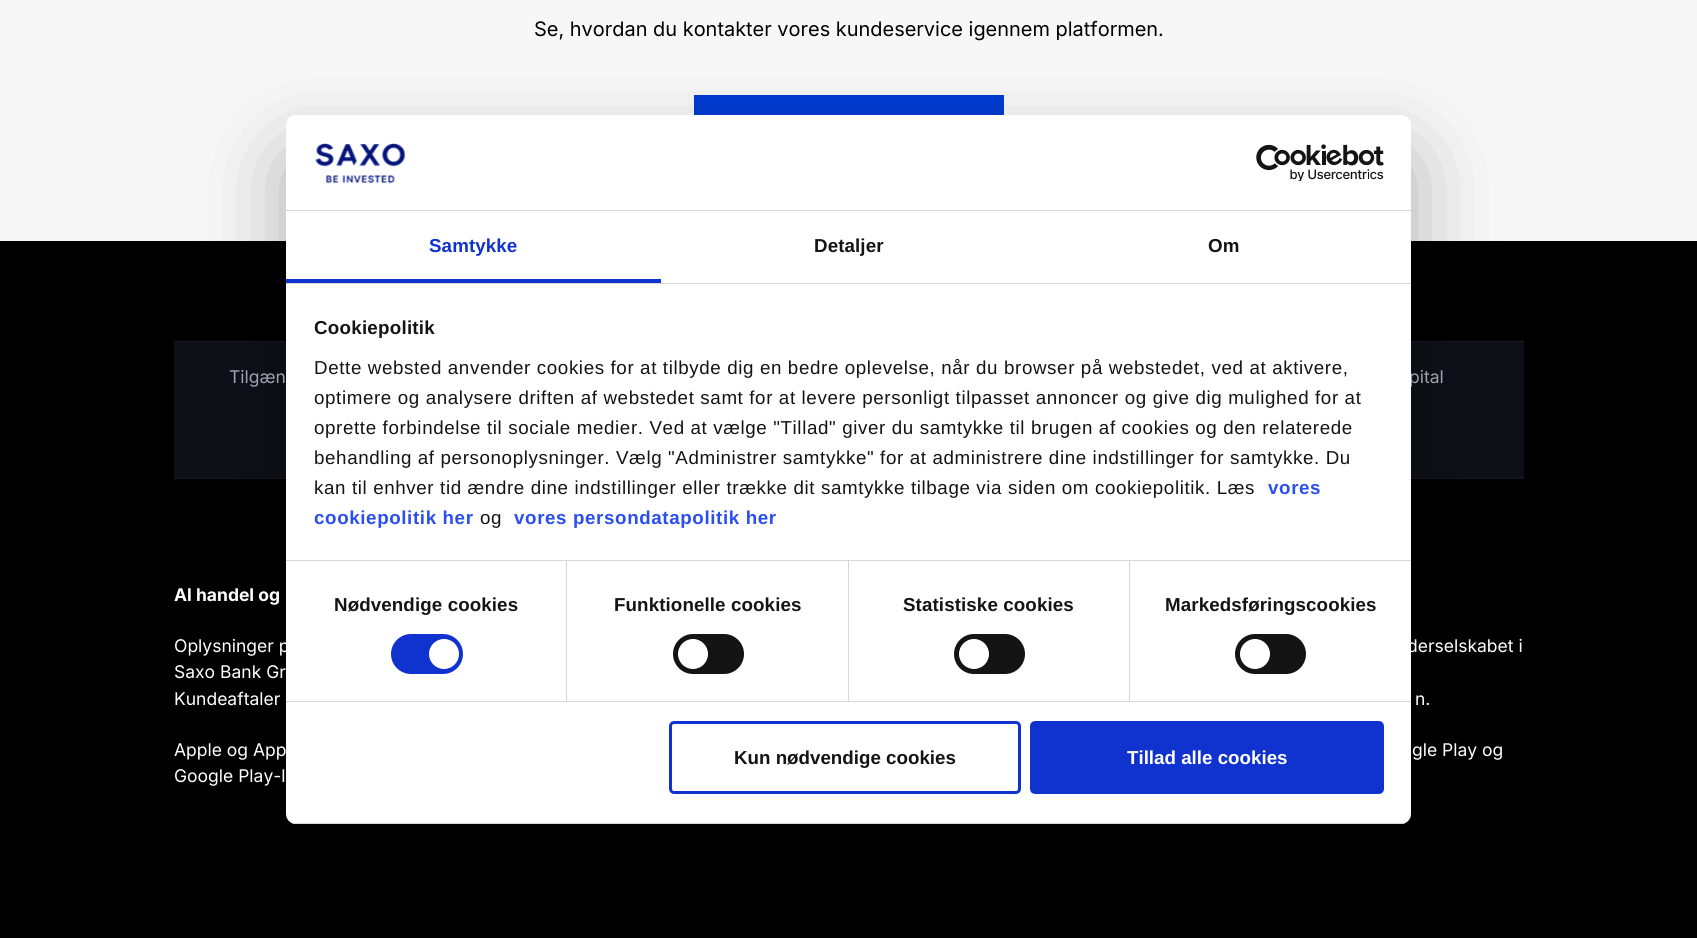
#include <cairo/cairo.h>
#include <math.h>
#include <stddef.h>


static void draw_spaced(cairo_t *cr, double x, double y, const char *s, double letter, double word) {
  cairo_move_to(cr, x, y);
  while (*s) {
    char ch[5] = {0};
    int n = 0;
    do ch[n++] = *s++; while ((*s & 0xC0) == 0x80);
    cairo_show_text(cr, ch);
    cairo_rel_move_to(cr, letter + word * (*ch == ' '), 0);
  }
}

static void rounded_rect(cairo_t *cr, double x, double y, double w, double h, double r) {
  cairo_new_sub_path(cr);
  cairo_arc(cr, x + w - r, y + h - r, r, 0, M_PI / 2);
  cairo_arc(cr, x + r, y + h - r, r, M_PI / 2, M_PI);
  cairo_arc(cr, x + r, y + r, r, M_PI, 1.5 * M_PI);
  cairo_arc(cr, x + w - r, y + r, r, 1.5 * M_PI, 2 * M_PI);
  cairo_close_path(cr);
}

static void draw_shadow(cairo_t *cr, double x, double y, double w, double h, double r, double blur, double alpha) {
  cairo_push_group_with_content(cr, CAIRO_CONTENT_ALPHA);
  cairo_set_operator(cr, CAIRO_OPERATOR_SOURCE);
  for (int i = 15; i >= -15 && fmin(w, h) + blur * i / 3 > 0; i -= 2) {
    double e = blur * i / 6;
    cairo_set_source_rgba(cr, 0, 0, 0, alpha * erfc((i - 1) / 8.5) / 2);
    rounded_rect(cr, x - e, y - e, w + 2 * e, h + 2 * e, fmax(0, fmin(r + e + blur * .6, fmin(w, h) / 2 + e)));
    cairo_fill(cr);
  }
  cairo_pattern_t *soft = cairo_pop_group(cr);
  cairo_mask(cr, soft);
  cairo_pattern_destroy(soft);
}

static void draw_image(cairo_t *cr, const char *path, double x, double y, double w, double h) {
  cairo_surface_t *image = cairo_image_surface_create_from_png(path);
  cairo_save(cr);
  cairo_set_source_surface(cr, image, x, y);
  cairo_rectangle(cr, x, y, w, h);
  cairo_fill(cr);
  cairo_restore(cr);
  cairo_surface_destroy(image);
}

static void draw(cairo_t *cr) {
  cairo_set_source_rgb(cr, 247 / 255.0, 247 / 255.0, 247 / 255.0);
  cairo_paint(cr);
  cairo_set_source_rgb(cr, 0, 60 / 255.0, 210 / 255.0);
  cairo_rectangle(cr, 694, 95, 310, 20);
  cairo_fill(cr);
  cairo_set_source_rgb(cr, 0, 0, 0);
  cairo_rectangle(cr, 0, 241, 1697, 697);
  cairo_fill(cr);
  cairo_set_source_rgb(cr, 13 / 255.0, 16 / 255.0, 23 / 255.0);
  cairo_rectangle(cr, 174, 342, 1350, 136);
  cairo_fill(cr);
  cairo_set_source_rgb(cr, 20 / 255.0, 26 / 255.0, 39 / 255.0);
  cairo_rectangle(cr, 174, 341, 1350, 1);
  cairo_fill(cr);
  cairo_rectangle(cr, 174, 478, 1350, 1);
  cairo_fill(cr);
  cairo_set_source_rgb(cr, 0, 0, 0);
  draw_shadow(cr, 286, 155, 1125, 709, 10, 42.5, 0.3);
  cairo_select_font_face(cr, "Inter", CAIRO_FONT_SLANT_NORMAL, CAIRO_FONT_WEIGHT_NORMAL);
  cairo_set_font_size(cr, 19.95);
  cairo_set_source_rgb(cr, 0, 0, 0);
  cairo_move_to(cr, 534, 36);
  cairo_show_text(cr, "Se, hvordan du kontakter vores kundeservice igennem platformen.");
  cairo_set_font_size(cr, 17.5);
  cairo_set_source_rgb(cr, 156 / 255.0, 163 / 255.0, 175 / 255.0);
  cairo_move_to(cr, 229, 383);
  cairo_show_text(cr, "Tilgæn");
  cairo_move_to(cr, 1409, 383);
  cairo_show_text(cr, "pital");
  cairo_set_source_rgb(cr, 1, 1, 1);
  rounded_rect(cr, 286, 115, 1125, 709, 10);
  cairo_fill(cr);
  cairo_set_source_rgb(cr, 16 / 255.0, 50 / 255.0, 207 / 255.0);
  rounded_rect(cr, 1031.5, 722.5, 351, 70, 3.5);
  cairo_fill_preserve(cr);
  cairo_set_line_width(cr, 3);
  cairo_stroke(cr);
  cairo_select_font_face(cr, "Liberation Sans", CAIRO_FONT_SLANT_NORMAL, CAIRO_FONT_WEIGHT_BOLD);
  cairo_set_font_size(cr, 18.75);
  cairo_set_source_rgb(cr, 1, 1, 1);
  cairo_move_to(cr, 1127, 764);
  cairo_show_text(cr, "Tillad alle cookies");
  rounded_rect(cr, 670.5, 722.5, 349, 70, 3.5);
  cairo_set_source_rgb(cr, 16 / 255.0, 50 / 255.0, 207 / 255.0);
  cairo_stroke(cr);
  cairo_set_source_rgb(cr, 20 / 255.0, 20 / 255.0, 20 / 255.0);
  cairo_move_to(cr, 734, 764);
  cairo_show_text(cr, "Kun nødvendige cookies");
  cairo_save(cr);
  rounded_rect(cr, 286, 115, 1125, 709, 10);
  cairo_clip(cr);
  cairo_set_source_rgb(cr, 214 / 255.0, 214 / 255.0, 214 / 255.0);
  cairo_rectangle(cr, 286, 823, 1125, 1);
  cairo_fill(cr);
  cairo_restore(cr);
  rounded_rect(cr, 1235, 634, 71, 40, 20);
  cairo_fill(cr);
  cairo_set_source_rgb(cr, 1, 1, 1);
  cairo_arc(cr, 1255, 654, 15, 0, 2 * M_PI);
  cairo_fill(cr);
  cairo_set_source_rgb(cr, 20 / 255.0, 20 / 255.0, 20 / 255.0);
  rounded_rect(cr, 954, 634, 71, 40, 20);
  cairo_fill(cr);
  cairo_set_source_rgb(cr, 1, 1, 1);
  cairo_arc(cr, 974, 654, 15, 0, 2 * M_PI);
  cairo_fill(cr);
  cairo_set_source_rgb(cr, 20 / 255.0, 20 / 255.0, 20 / 255.0);
  rounded_rect(cr, 673, 634, 71, 40, 20);
  cairo_fill(cr);
  cairo_set_source_rgb(cr, 1, 1, 1);
  cairo_arc(cr, 693, 654, 15, 0, 2 * M_PI);
  cairo_fill(cr);
  cairo_set_source_rgb(cr, 16 / 255.0, 50 / 255.0, 207 / 255.0);
  rounded_rect(cr, 391, 634, 72, 40, 20);
  cairo_fill(cr);
  cairo_set_source_rgb(cr, 1, 1, 1);
  cairo_arc(cr, 444, 654, 15, 0, 2 * M_PI);
  cairo_fill(cr);
  cairo_set_source_rgb(cr, 42 / 255.0, 78 / 255.0, 239 / 255.0);
  draw_spaced(cr, 514, 524, "vores persondatapolitik her", 0.62, 0);
  cairo_select_font_face(cr, "Liberation Sans", CAIRO_FONT_SLANT_NORMAL, CAIRO_FONT_WEIGHT_NORMAL);
  cairo_set_source_rgb(cr, 20 / 255.0, 20 / 255.0, 20 / 255.0);
  draw_spaced(cr, 480, 524, "og", 0.62, 0);
  cairo_select_font_face(cr, "Liberation Sans", CAIRO_FONT_SLANT_NORMAL, CAIRO_FONT_WEIGHT_BOLD);
  cairo_set_source_rgb(cr, 42 / 255.0, 78 / 255.0, 239 / 255.0);
  draw_spaced(cr, 314, 524, "cookiepolitik her", 0.62, 0);
  draw_spaced(cr, 1268, 494, "vores", 0.62, 0);
  cairo_select_font_face(cr, "Liberation Sans", CAIRO_FONT_SLANT_NORMAL, CAIRO_FONT_WEIGHT_NORMAL);
  cairo_set_source_rgb(cr, 20 / 255.0, 20 / 255.0, 20 / 255.0);
  draw_spaced(cr, 314, 494, "kan til enhver tid ændre dine indstillinger eller trække dit samtykke tilbage via siden om cookiepolitik. Læs", 0.62, 0);
  draw_spaced(cr, 314, 464, "behandling af personoplysninger. Vælg \"Administrer samtykke\" for at administrere dine indstillinger for samtykke. Du", 0.62, 0);
  draw_spaced(cr, 314, 434, "oprette forbindelse til sociale medier. Ved at vælge \"Tillad\" giver du samtykke til brugen af cookies og den relaterede", 0.62, 0);
  draw_spaced(cr, 314, 404, "optimere og analysere driften af webstedet samt for at levere personligt tilpasset annoncer og give dig mulighed for at", 0.62, 0);
  draw_spaced(cr, 314, 374, "Dette websted anvender cookies for at tilbyde dig en bedre oplevelse, når du browser på webstedet, ved at aktivere,", 0.62, 0);
  cairo_select_font_face(cr, "Liberation Sans", CAIRO_FONT_SLANT_NORMAL, CAIRO_FONT_WEIGHT_BOLD);
  draw_spaced(cr, 314, 334, "Cookiepolitik", 0.25, 0);
  cairo_set_source_rgb(cr, 214 / 255.0, 214 / 255.0, 214 / 255.0);
  cairo_rectangle(cr, 286, 560, 1125, 1);
  cairo_fill(cr);
  cairo_set_source_rgb(cr, 20 / 255.0, 20 / 255.0, 20 / 255.0);
  draw_spaced(cr, 1208, 252, "Om", 0.1, 0);
  draw_spaced(cr, 814, 252, "Detaljer", 0.1, 0);
  cairo_set_source_rgb(cr, 16 / 255.0, 50 / 255.0, 207 / 255.0);
  draw_spaced(cr, 429, 252, "Samtykke", 0.1, 0);
  cairo_rectangle(cr, 286, 279, 375, 4);
  cairo_fill(cr);
  cairo_set_source_rgb(cr, 214 / 255.0, 214 / 255.0, 214 / 255.0);
  cairo_rectangle(cr, 286, 283, 1125, 1);
  cairo_fill(cr);
  cairo_set_source_rgb(cr, 20 / 255.0, 20 / 255.0, 20 / 255.0);
  draw_spaced(cr, 1165, 611, "Markedsføringscookies", 0.1, 0);
  draw_spaced(cr, 903, 611, "Statistiske cookies", 0.1, 0);
  cairo_set_source_rgb(cr, 214 / 255.0, 214 / 255.0, 214 / 255.0);
  cairo_rectangle(cr, 1129, 561, 1, 140);
  cairo_fill(cr);
  cairo_set_source_rgb(cr, 20 / 255.0, 20 / 255.0, 20 / 255.0);
  draw_spaced(cr, 614, 611, "Funktionelle cookies", 0.1, 0);
  cairo_set_source_rgb(cr, 214 / 255.0, 214 / 255.0, 214 / 255.0);
  cairo_rectangle(cr, 848, 561, 1, 140);
  cairo_fill(cr);
  cairo_set_source_rgb(cr, 20 / 255.0, 20 / 255.0, 20 / 255.0);
  draw_spaced(cr, 334, 611, "Nødvendige cookies", 0.1, 0);
  cairo_set_source_rgb(cr, 214 / 255.0, 214 / 255.0, 214 / 255.0);
  cairo_rectangle(cr, 566, 561, 1, 140);
  cairo_fill(cr);
  cairo_rectangle(cr, 286, 701, 1125, 1);
  cairo_fill(cr);
  draw_image(cr, "images/2.png", 1256, 144, 128, 37);
  draw_image(cr, "images/1.png", 315, 143, 90, 41);
  cairo_rectangle(cr, 286, 210, 1125, 1);
  cairo_fill(cr);
  cairo_select_font_face(cr, "Inter", CAIRO_FONT_SLANT_NORMAL, CAIRO_FONT_WEIGHT_BOLD);
  cairo_set_font_size(cr, 17.5);
  cairo_set_source_rgb(cr, 1, 1, 1);
  cairo_move_to(cr, 174, 601);
  cairo_show_text(cr, "Al handel og");
  cairo_select_font_face(cr, "Inter", CAIRO_FONT_SLANT_NORMAL, CAIRO_FONT_WEIGHT_NORMAL);
  cairo_move_to(cr, 174, 652);
  cairo_show_text(cr, "Oplysninger p");
  cairo_move_to(cr, 1407, 652);
  cairo_show_text(cr, "derselskabet i");
  cairo_move_to(cr, 174, 678);
  cairo_show_text(cr, "Saxo Bank Gr");
  cairo_move_to(cr, 174, 705);
  cairo_show_text(cr, "Kundeaftaler");
  cairo_move_to(cr, 1415, 705);
  cairo_show_text(cr, "n.");
  cairo_move_to(cr, 174, 756);
  cairo_show_text(cr, "Apple og App");
  cairo_move_to(cr, 1412, 756);
  cairo_show_text(cr, "gle Play og");
  cairo_move_to(cr, 174, 782);
  cairo_show_text(cr, "Google Play-l");
}

int main(void) {
  cairo_surface_t *surface = cairo_image_surface_create(CAIRO_FORMAT_RGB24, 1697, 938);
  cairo_t *cr = cairo_create(surface);
  cairo_font_options_t *options = cairo_font_options_create();
  cairo_font_options_set_hint_metrics(options, CAIRO_HINT_METRICS_OFF);
  cairo_font_options_set_hint_style(options, CAIRO_HINT_STYLE_NONE);
  cairo_set_font_options(cr, options);
  cairo_set_miter_limit(cr, 4);
  draw(cr);
  cairo_surface_write_to_png(surface, "out.png");
  cairo_font_options_destroy(options);
  cairo_destroy(cr);
  cairo_surface_destroy(surface);
  return 0;
}
